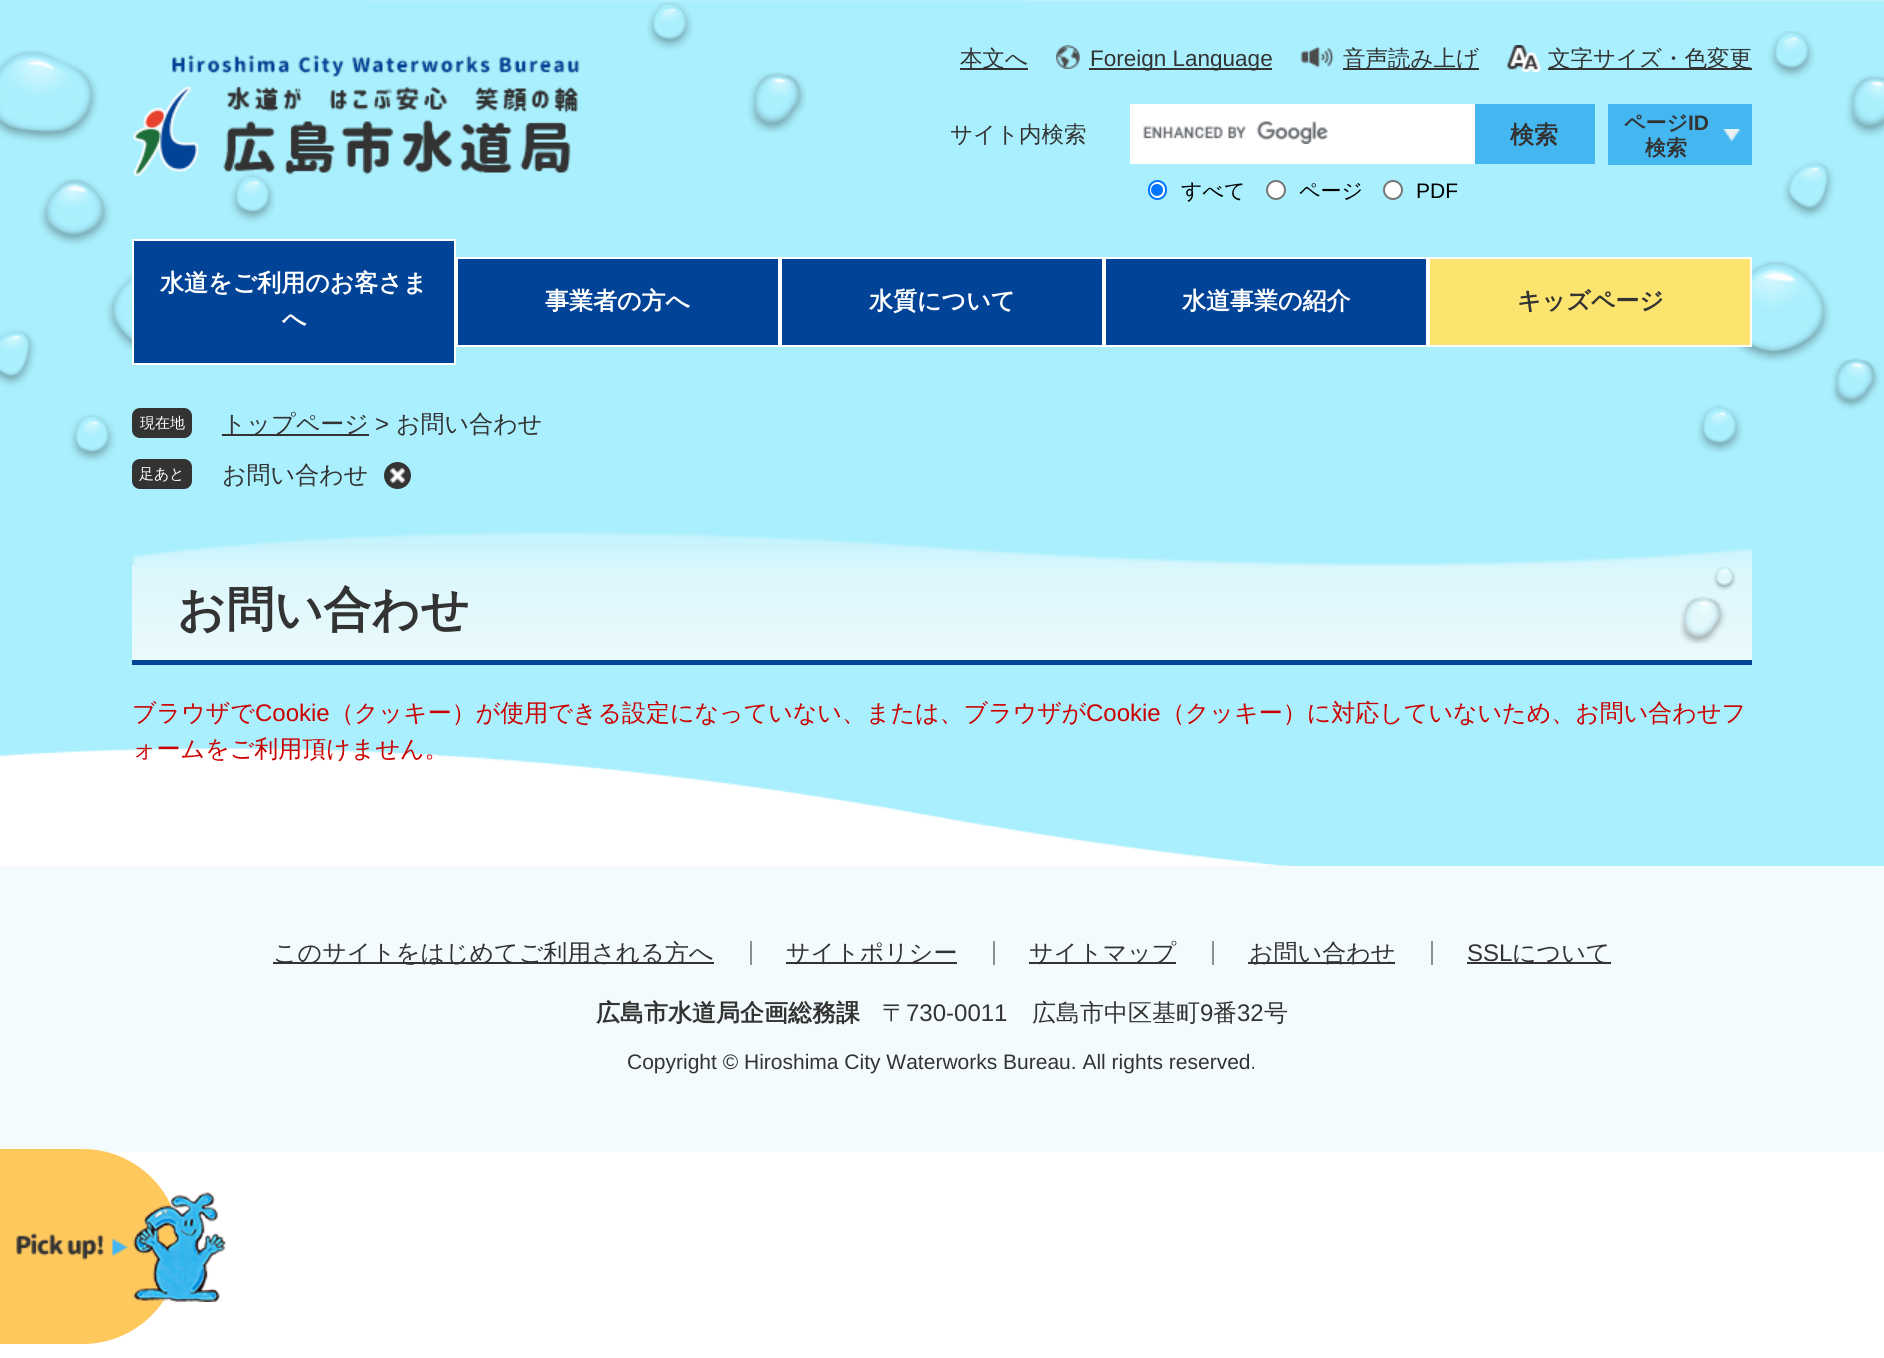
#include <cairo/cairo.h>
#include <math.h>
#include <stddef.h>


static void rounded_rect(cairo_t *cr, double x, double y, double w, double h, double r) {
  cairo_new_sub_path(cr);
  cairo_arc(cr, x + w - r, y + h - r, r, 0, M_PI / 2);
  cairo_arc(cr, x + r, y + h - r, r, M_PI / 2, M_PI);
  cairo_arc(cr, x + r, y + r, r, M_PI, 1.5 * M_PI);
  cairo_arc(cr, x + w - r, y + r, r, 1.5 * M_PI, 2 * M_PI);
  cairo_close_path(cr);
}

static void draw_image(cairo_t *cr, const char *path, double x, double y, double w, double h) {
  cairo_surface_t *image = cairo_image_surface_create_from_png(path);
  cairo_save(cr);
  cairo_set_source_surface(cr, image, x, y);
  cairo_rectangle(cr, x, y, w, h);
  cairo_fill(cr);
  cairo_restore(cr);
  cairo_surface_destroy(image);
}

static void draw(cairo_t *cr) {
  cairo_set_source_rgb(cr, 1, 1, 1);
  cairo_paint(cr);
  draw_image(cr, "images/1.png", 0, 0, 1884, 866);
  draw_image(cr, "images/10.png", 0, 50, 275, 412);
  draw_image(cr, "images/2.png", 133, 55, 447, 121);
  draw_image(cr, "images/3.png", 647, 2, 159, 131);
  cairo_set_source_rgb(cr, 51 / 255.0, 51 / 255.0, 51 / 255.0);
  cairo_rectangle(cr, 960, 68, 68, 2);
  cairo_fill(cr);
  draw_image(cr, "images/4.png", 1056, 45, 24, 24);
  cairo_rectangle(cr, 1089, 68, 183, 2);
  cairo_fill(cr);
  draw_image(cr, "images/5.png", 1300, 46, 34, 22);
  cairo_rectangle(cr, 1343, 68, 136, 2);
  cairo_fill(cr);
  draw_image(cr, "images/6.png", 1507, 45, 34, 27);
  draw_image(cr, "images/9.png", 1697, 31, 187, 422);
  cairo_rectangle(cr, 1548, 68, 204, 2);
  cairo_fill(cr);
  cairo_set_source_rgb(cr, 1, 1, 1);
  cairo_rectangle(cr, 1130, 104, 345, 60);
  cairo_fill(cr);
  draw_image(cr, "images/7.png", 1143, 121, 185, 23);
  cairo_set_source_rgb(cr, 68 / 255.0, 183 / 255.0, 241 / 255.0);
  cairo_rectangle(cr, 1475, 104, 120, 60);
  cairo_fill(cr);
  cairo_set_source_rgb(cr, 1, 1, 1);
  rounded_rect(cr, 1149, 181, 17, 18, 8.5);
  cairo_fill_preserve(cr);
  cairo_set_source_rgb(cr, 0, 117 / 255.0, 1);
  cairo_stroke(cr);
  cairo_arc(cr, 1157, 190, 6, 0, 2 * M_PI);
  cairo_fill(cr);
  cairo_set_source_rgb(cr, 1, 1, 1);
  cairo_arc(cr, 1276, 190, 9, 0, 2 * M_PI);
  cairo_fill_preserve(cr);
  cairo_set_source_rgb(cr, 118 / 255.0, 118 / 255.0, 118 / 255.0);
  cairo_stroke(cr);
  cairo_set_source_rgb(cr, 1, 1, 1);
  cairo_arc(cr, 1393, 190, 9, 0, 2 * M_PI);
  cairo_fill_preserve(cr);
  cairo_set_source_rgb(cr, 118 / 255.0, 118 / 255.0, 118 / 255.0);
  cairo_stroke(cr);
  cairo_set_source_rgb(cr, 68 / 255.0, 183 / 255.0, 241 / 255.0);
  cairo_rectangle(cr, 1608, 104, 144, 61);
  cairo_fill(cr);
  draw_image(cr, "images/8.png", 1723, 129, 17, 12);
  cairo_set_source_rgb(cr, 0, 67 / 255.0, 151 / 255.0);
  cairo_rectangle(cr, 133, 240, 322, 124);
  cairo_fill_preserve(cr);
  cairo_set_source_rgb(cr, 1, 1, 1);
  cairo_stroke(cr);
  cairo_set_source_rgb(cr, 0, 67 / 255.0, 151 / 255.0);
  cairo_rectangle(cr, 457, 258, 322, 88);
  cairo_fill_preserve(cr);
  cairo_set_source_rgb(cr, 1, 1, 1);
  cairo_stroke(cr);
  cairo_set_source_rgb(cr, 0, 67 / 255.0, 151 / 255.0);
  cairo_rectangle(cr, 781, 258, 322, 88);
  cairo_fill_preserve(cr);
  cairo_set_source_rgb(cr, 1, 1, 1);
  cairo_stroke(cr);
  cairo_set_source_rgb(cr, 0, 67 / 255.0, 151 / 255.0);
  cairo_rectangle(cr, 1105, 258, 322, 88);
  cairo_fill_preserve(cr);
  cairo_set_source_rgb(cr, 1, 1, 1);
  cairo_stroke(cr);
  cairo_set_source_rgb(cr, 253 / 255.0, 228 / 255.0, 110 / 255.0);
  cairo_rectangle(cr, 1429, 258, 322, 88);
  cairo_fill_preserve(cr);
  cairo_set_source_rgb(cr, 1, 1, 1);
  cairo_stroke(cr);
  cairo_set_source_rgb(cr, 51 / 255.0, 51 / 255.0, 51 / 255.0);
  rounded_rect(cr, 132, 408, 60, 30, 8);
  cairo_fill(cr);
  cairo_rectangle(cr, 222, 434, 147, 2);
  cairo_fill(cr);
  rounded_rect(cr, 132, 459, 60, 30, 8);
  cairo_fill(cr);
  cairo_arc(cr, 397.5, 475.5, 13.5, 0, 2 * M_PI);
  cairo_fill(cr);
  draw_image(cr, "images/11.png", 390, 468, 15, 15);
  cairo_set_source_rgb(cr, 242 / 255.0, 250 / 255.0, 252 / 255.0);
  cairo_rectangle(cr, 132, 566, 1620, 7);
  cairo_fill(cr);
  cairo_set_source_rgb(cr, 0, 67 / 255.0, 151 / 255.0);
  cairo_rectangle(cr, 132, 660, 1620, 5);
  cairo_fill(cr);
  draw_image(cr, "images/12.png", 132, 532, 1620, 128);
  draw_image(cr, "images/13.png", 1680, 566, 56, 78);
  cairo_set_source_rgb(cr, 243 / 255.0, 251 / 255.0, 253 / 255.0);
  cairo_rectangle(cr, 0, 866, 1884, 286);
  cairo_fill(cr);
  cairo_set_source_rgb(cr, 141 / 255.0, 144 / 255.0, 145 / 255.0);
  cairo_rectangle(cr, 750, 941, 2, 24);
  cairo_fill(cr);
  cairo_set_source_rgb(cr, 51 / 255.0, 51 / 255.0, 51 / 255.0);
  cairo_rectangle(cr, 273, 962, 441, 2);
  cairo_fill(cr);
  cairo_set_source_rgb(cr, 141 / 255.0, 144 / 255.0, 145 / 255.0);
  cairo_rectangle(cr, 993, 941, 2, 24);
  cairo_fill(cr);
  cairo_set_source_rgb(cr, 51 / 255.0, 51 / 255.0, 51 / 255.0);
  cairo_rectangle(cr, 786, 962, 171, 2);
  cairo_fill(cr);
  cairo_set_source_rgb(cr, 141 / 255.0, 144 / 255.0, 145 / 255.0);
  cairo_rectangle(cr, 1212, 941, 2, 24);
  cairo_fill(cr);
  cairo_set_source_rgb(cr, 51 / 255.0, 51 / 255.0, 51 / 255.0);
  cairo_rectangle(cr, 1029, 962, 147, 2);
  cairo_fill(cr);
  cairo_set_source_rgb(cr, 141 / 255.0, 144 / 255.0, 145 / 255.0);
  cairo_rectangle(cr, 1431, 941, 2, 24);
  cairo_fill(cr);
  cairo_set_source_rgb(cr, 51 / 255.0, 51 / 255.0, 51 / 255.0);
  cairo_rectangle(cr, 1248, 962, 147, 2);
  cairo_fill(cr);
  cairo_rectangle(cr, 1467, 962, 144, 2);
  cairo_fill(cr);
  cairo_set_source_rgb(cr, 254 / 255.0, 200 / 255.0, 93 / 255.0);
  cairo_new_path(cr);
  cairo_move_to(cr, 0, 1149);
  cairo_line_to(cr, 82.5, 1149);
  cairo_curve_to(cr, 136.5, 1149, 180, 1192.5, 180, 1246.5);
  cairo_curve_to(cr, 180, 1300.5, 136.5, 1344, 82.5, 1344);
  cairo_line_to(cr, 0, 1344);
  cairo_close_path(cr);
  cairo_fill(cr);
  draw_image(cr, "images/14.png", 16, 1232, 88, 29);
  draw_image(cr, "images/15.png", 112, 1239, 16, 17);
  draw_image(cr, "images/16.png", 133, 1192, 93, 110);
  cairo_select_font_face(cr, "WenQuanYi Zen Hei Medium", CAIRO_FONT_SLANT_NORMAL, CAIRO_FONT_WEIGHT_NORMAL);
  cairo_set_font_size(cr, 22.5);
  cairo_set_source_rgb(cr, 51 / 255.0, 51 / 255.0, 51 / 255.0);
  cairo_move_to(cr, 960, 66);
  cairo_show_text(cr, "本文へ");
  cairo_select_font_face(cr, "Liberation Sans", CAIRO_FONT_SLANT_NORMAL, CAIRO_FONT_WEIGHT_NORMAL);
  cairo_move_to(cr, 1090, 66);
  cairo_show_text(cr, "Foreign Language");
  cairo_select_font_face(cr, "WenQuanYi Zen Hei Medium", CAIRO_FONT_SLANT_NORMAL, CAIRO_FONT_WEIGHT_NORMAL);
  cairo_move_to(cr, 1343, 66);
  cairo_show_text(cr, "音声読み上げ");
  cairo_move_to(cr, 1548, 66);
  cairo_show_text(cr, "文字サイズ・色変更");
  cairo_move_to(cr, 950, 142);
  cairo_show_text(cr, "サイト内検索");
  cairo_select_font_face(cr, "WenQuanYi Zen Hei", CAIRO_FONT_SLANT_NORMAL, CAIRO_FONT_WEIGHT_BOLD);
  cairo_set_font_size(cr, 24);
  cairo_move_to(cr, 1510, 143);
  cairo_show_text(cr, "検索");
  cairo_select_font_face(cr, "WenQuanYi Zen Hei Medium", CAIRO_FONT_SLANT_NORMAL, CAIRO_FONT_WEIGHT_NORMAL);
  cairo_set_font_size(cr, 21);
  cairo_set_source_rgb(cr, 0, 0, 0);
  cairo_move_to(cr, 1181, 198);
  cairo_show_text(cr, "すべて");
  cairo_move_to(cr, 1299, 198);
  cairo_show_text(cr, "ページ");
  cairo_select_font_face(cr, "Liberation Sans", CAIRO_FONT_SLANT_NORMAL, CAIRO_FONT_WEIGHT_NORMAL);
  cairo_move_to(cr, 1416, 198);
  cairo_show_text(cr, "PDF");
  cairo_select_font_face(cr, "WenQuanYi Zen Hei", CAIRO_FONT_SLANT_NORMAL, CAIRO_FONT_WEIGHT_BOLD);
  cairo_set_source_rgb(cr, 51 / 255.0, 51 / 255.0, 51 / 255.0);
  cairo_move_to(cr, 1624, 130);
  cairo_show_text(cr, "ページ");
  cairo_select_font_face(cr, "Liberation Sans", CAIRO_FONT_SLANT_NORMAL, CAIRO_FONT_WEIGHT_BOLD);
  cairo_move_to(cr, 1688, 130);
  cairo_show_text(cr, "ID");
  cairo_select_font_face(cr, "WenQuanYi Zen Hei", CAIRO_FONT_SLANT_NORMAL, CAIRO_FONT_WEIGHT_BOLD);
  cairo_move_to(cr, 1645, 155);
  cairo_show_text(cr, "検索");
  cairo_set_font_size(cr, 24);
  cairo_set_source_rgb(cr, 1, 1, 1);
  cairo_move_to(cr, 160, 291);
  cairo_show_text(cr, "水道をご利用のお客さま");
  cairo_move_to(cr, 282, 327);
  cairo_show_text(cr, "へ");
  cairo_move_to(cr, 545, 309);
  cairo_show_text(cr, "事業者の方へ");
  cairo_move_to(cr, 869, 309);
  cairo_show_text(cr, "水質について");
  cairo_move_to(cr, 1182, 309);
  cairo_show_text(cr, "水道事業の紹介");
  cairo_set_source_rgb(cr, 51 / 255.0, 51 / 255.0, 51 / 255.0);
  cairo_move_to(cr, 1517, 309);
  cairo_show_text(cr, "キッズページ");
  cairo_select_font_face(cr, "WenQuanYi Zen Hei Medium", CAIRO_FONT_SLANT_NORMAL, CAIRO_FONT_WEIGHT_NORMAL);
  cairo_set_font_size(cr, 15);
  cairo_set_source_rgb(cr, 1, 1, 1);
  cairo_move_to(cr, 140, 428);
  cairo_show_text(cr, "現在地");
  cairo_set_font_size(cr, 24);
  cairo_set_source_rgb(cr, 51 / 255.0, 51 / 255.0, 51 / 255.0);
  cairo_move_to(cr, 222, 432);
  cairo_show_text(cr, "トップページ");
  cairo_select_font_face(cr, "Liberation Sans", CAIRO_FONT_SLANT_NORMAL, CAIRO_FONT_WEIGHT_NORMAL);
  cairo_move_to(cr, 375, 432);
  cairo_show_text(cr, ">");
  cairo_select_font_face(cr, "WenQuanYi Zen Hei Medium", CAIRO_FONT_SLANT_NORMAL, CAIRO_FONT_WEIGHT_NORMAL);
  cairo_move_to(cr, 396, 432);
  cairo_show_text(cr, "お問い合わせ");
  cairo_set_font_size(cr, 15);
  cairo_set_source_rgb(cr, 1, 1, 1);
  cairo_move_to(cr, 139, 479);
  cairo_show_text(cr, "足あと");
  cairo_set_font_size(cr, 24);
  cairo_set_source_rgb(cr, 51 / 255.0, 51 / 255.0, 51 / 255.0);
  cairo_move_to(cr, 222, 483);
  cairo_show_text(cr, "お問い合わせ");
  cairo_select_font_face(cr, "WenQuanYi Zen Hei", CAIRO_FONT_SLANT_NORMAL, CAIRO_FONT_WEIGHT_BOLD);
  cairo_set_font_size(cr, 48);
  cairo_move_to(cr, 177, 626);
  cairo_show_text(cr, "お問い合わせ");
  cairo_select_font_face(cr, "WenQuanYi Zen Hei Medium", CAIRO_FONT_SLANT_NORMAL, CAIRO_FONT_WEIGHT_NORMAL);
  cairo_set_font_size(cr, 24);
  cairo_set_source_rgb(cr, 204 / 255.0, 0, 0);
  cairo_move_to(cr, 132, 721);
  cairo_show_text(cr, "ブラウザで");
  cairo_select_font_face(cr, "Liberation Sans", CAIRO_FONT_SLANT_NORMAL, CAIRO_FONT_WEIGHT_NORMAL);
  cairo_move_to(cr, 255, 721);
  cairo_show_text(cr, "Cookie");
  cairo_select_font_face(cr, "WenQuanYi Zen Hei Medium", CAIRO_FONT_SLANT_NORMAL, CAIRO_FONT_WEIGHT_NORMAL);
  cairo_move_to(cr, 330, 721);
  cairo_show_text(cr, "（クッキー）が使用できる設定になっていない、または、ブラウザが");
  cairo_select_font_face(cr, "Liberation Sans", CAIRO_FONT_SLANT_NORMAL, CAIRO_FONT_WEIGHT_NORMAL);
  cairo_move_to(cr, 1086, 721);
  cairo_show_text(cr, "Cookie");
  cairo_select_font_face(cr, "WenQuanYi Zen Hei Medium", CAIRO_FONT_SLANT_NORMAL, CAIRO_FONT_WEIGHT_NORMAL);
  cairo_move_to(cr, 1161, 721);
  cairo_show_text(cr, "（クッキー）に対応していないため、お問い合わせフ");
  cairo_move_to(cr, 132, 757);
  cairo_show_text(cr, "ォームをご利用頂けません。");
  cairo_set_source_rgb(cr, 51 / 255.0, 51 / 255.0, 51 / 255.0);
  cairo_move_to(cr, 273, 961);
  cairo_show_text(cr, "このサイトをはじめてご利用される方へ");
  cairo_move_to(cr, 786, 961);
  cairo_show_text(cr, "サイトポリシー");
  cairo_move_to(cr, 1029, 961);
  cairo_show_text(cr, "サイトマップ");
  cairo_move_to(cr, 1249, 961);
  cairo_show_text(cr, "お問い合わせ");
  cairo_select_font_face(cr, "Liberation Sans", CAIRO_FONT_SLANT_NORMAL, CAIRO_FONT_WEIGHT_NORMAL);
  cairo_move_to(cr, 1467, 961);
  cairo_show_text(cr, "SSL");
  cairo_select_font_face(cr, "WenQuanYi Zen Hei Medium", CAIRO_FONT_SLANT_NORMAL, CAIRO_FONT_WEIGHT_NORMAL);
  cairo_move_to(cr, 1512, 961);
  cairo_show_text(cr, "について");
  cairo_select_font_face(cr, "WenQuanYi Zen Hei", CAIRO_FONT_SLANT_NORMAL, CAIRO_FONT_WEIGHT_BOLD);
  cairo_move_to(cr, 596, 1021);
  cairo_show_text(cr, "広島市水道局企画総務課");
  cairo_select_font_face(cr, "WenQuanYi Zen Hei Medium", CAIRO_FONT_SLANT_NORMAL, CAIRO_FONT_WEIGHT_NORMAL);
  cairo_move_to(cr, 882, 1021);
  cairo_show_text(cr, "〒");
  cairo_select_font_face(cr, "Liberation Sans", CAIRO_FONT_SLANT_NORMAL, CAIRO_FONT_WEIGHT_NORMAL);
  cairo_move_to(cr, 906, 1021);
  cairo_show_text(cr, "730-0011");
  cairo_select_font_face(cr, "WenQuanYi Zen Hei Medium", CAIRO_FONT_SLANT_NORMAL, CAIRO_FONT_WEIGHT_NORMAL);
  cairo_move_to(cr, 1032, 1021);
  cairo_show_text(cr, "広島市中区基町");
  cairo_select_font_face(cr, "Liberation Sans", CAIRO_FONT_SLANT_NORMAL, CAIRO_FONT_WEIGHT_NORMAL);
  cairo_move_to(cr, 1200, 1021);
  cairo_show_text(cr, "9");
  cairo_select_font_face(cr, "WenQuanYi Zen Hei Medium", CAIRO_FONT_SLANT_NORMAL, CAIRO_FONT_WEIGHT_NORMAL);
  cairo_move_to(cr, 1213, 1021);
  cairo_show_text(cr, "番");
  cairo_select_font_face(cr, "Liberation Sans", CAIRO_FONT_SLANT_NORMAL, CAIRO_FONT_WEIGHT_NORMAL);
  cairo_move_to(cr, 1237, 1021);
  cairo_show_text(cr, "32");
  cairo_select_font_face(cr, "WenQuanYi Zen Hei Medium", CAIRO_FONT_SLANT_NORMAL, CAIRO_FONT_WEIGHT_NORMAL);
  cairo_move_to(cr, 1264, 1021);
  cairo_show_text(cr, "号");
  cairo_select_font_face(cr, "Liberation Sans", CAIRO_FONT_SLANT_NORMAL, CAIRO_FONT_WEIGHT_NORMAL);
  cairo_set_font_size(cr, 21);
  cairo_move_to(cr, 627, 1069);
  cairo_show_text(cr, "Copyright © Hiroshima City Waterworks Bureau. All rights reserved.");
}

int main(void) {
  cairo_surface_t *surface = cairo_image_surface_create(CAIRO_FORMAT_RGB24, 1884, 1358);
  cairo_t *cr = cairo_create(surface);
  cairo_font_options_t *options = cairo_font_options_create();
  cairo_font_options_set_hint_metrics(options, CAIRO_HINT_METRICS_OFF);
  cairo_font_options_set_hint_style(options, CAIRO_HINT_STYLE_NONE);
  cairo_set_font_options(cr, options);
  cairo_set_miter_limit(cr, 4);
  draw(cr);
  cairo_surface_write_to_png(surface, "out.png");
  cairo_font_options_destroy(options);
  cairo_destroy(cr);
  cairo_surface_destroy(surface);
  return 0;
}
